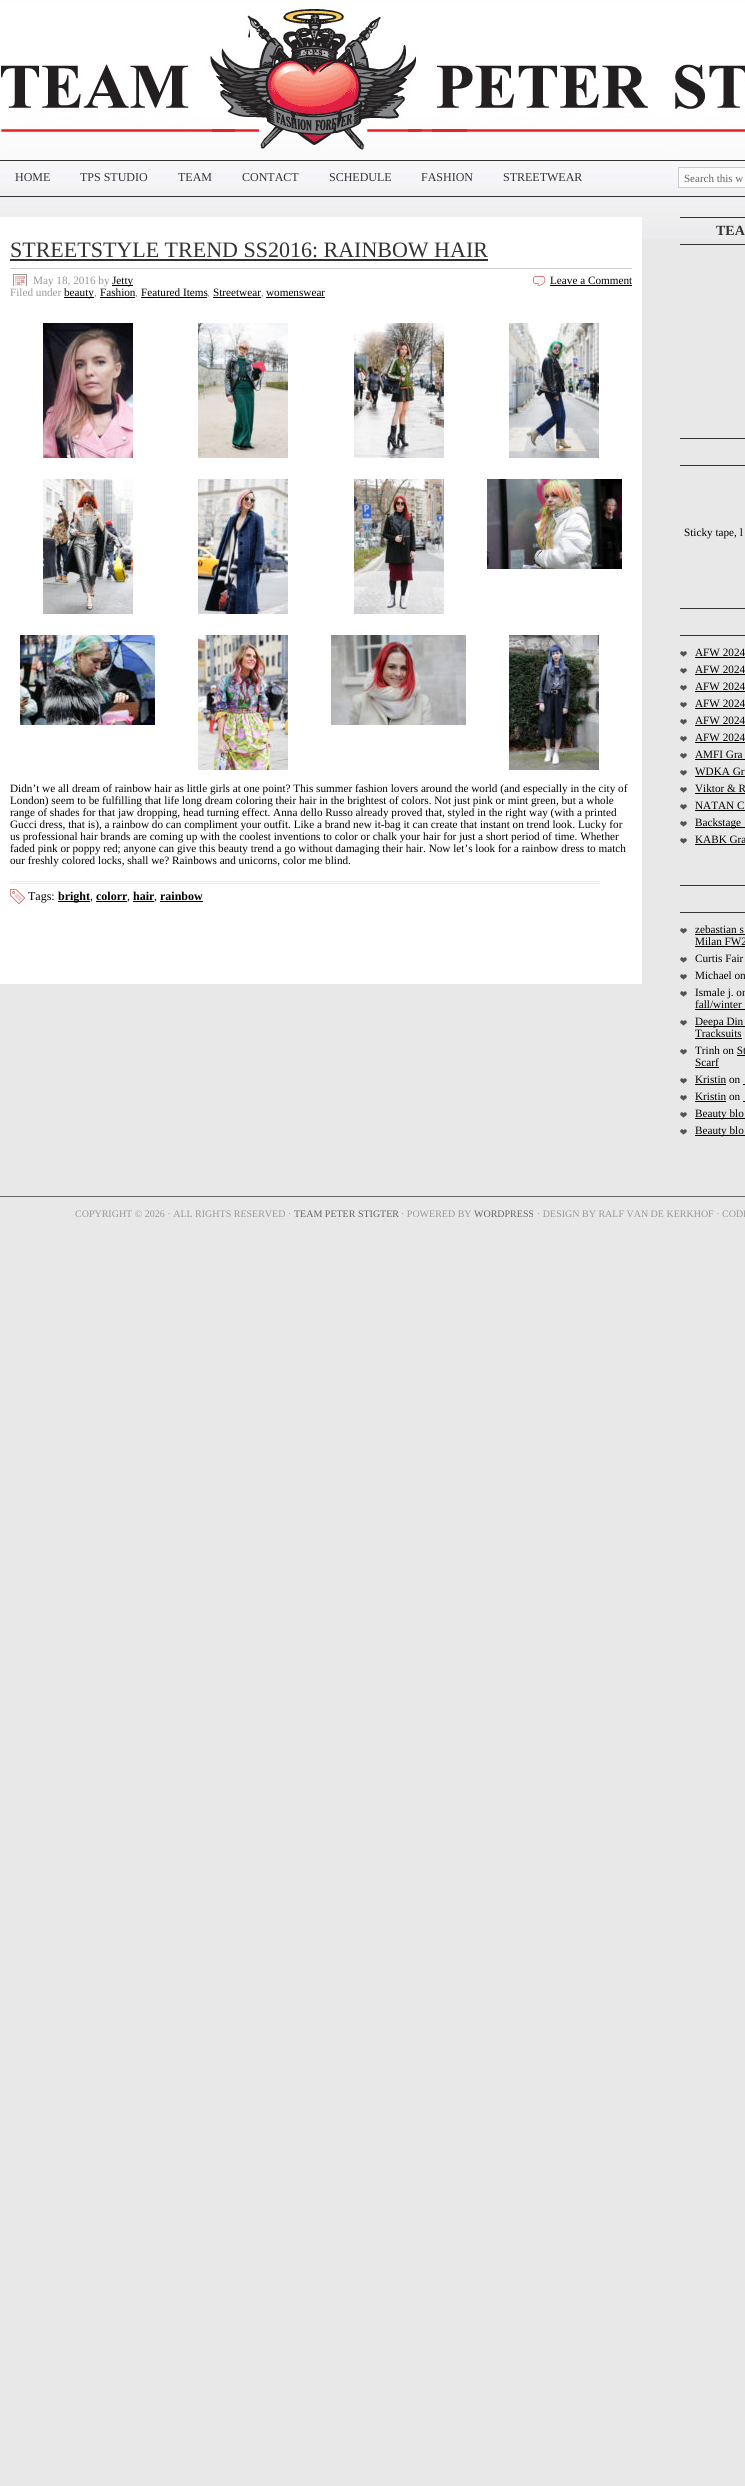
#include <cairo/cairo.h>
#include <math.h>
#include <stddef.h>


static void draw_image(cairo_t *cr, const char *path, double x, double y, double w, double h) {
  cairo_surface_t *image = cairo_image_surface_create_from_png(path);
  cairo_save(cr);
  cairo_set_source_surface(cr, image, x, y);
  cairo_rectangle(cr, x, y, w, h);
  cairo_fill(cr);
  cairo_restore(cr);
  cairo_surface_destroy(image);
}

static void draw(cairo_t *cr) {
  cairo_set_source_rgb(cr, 232 / 255.0, 232 / 255.0, 232 / 255.0);
  cairo_paint(cr);
  draw_image(cr, "images/1.png", 0, 0, 745, 239);
  draw_image(cr, "images/2.png", 1, 2, 744, 148);
  cairo_set_source_rgb(cr, 51 / 255.0, 51 / 255.0, 51 / 255.0);
  cairo_rectangle(cr, 0, 160, 745, 1);
  cairo_fill(cr);
  cairo_rectangle(cr, 0, 196, 745, 1);
  cairo_fill(cr);
  cairo_set_source_rgb(cr, 252 / 255.0, 252 / 255.0, 252 / 255.0);
  cairo_rectangle(cr, 678.5, 167.5, 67, 20);
  cairo_fill_preserve(cr);
  cairo_set_source_rgb(cr, 204 / 255.0, 204 / 255.0, 204 / 255.0);
  cairo_set_line_width(cr, 1);
  cairo_stroke(cr);
  cairo_set_source_rgb(cr, 1, 1, 1);
  cairo_rectangle(cr, 0, 217, 642, 767);
  cairo_fill(cr);
  cairo_set_source_rgb(cr, 51 / 255.0, 51 / 255.0, 51 / 255.0);
  cairo_rectangle(cr, 10, 259, 478, 2);
  cairo_fill(cr);
  cairo_set_source_rgb(cr, 204 / 255.0, 204 / 255.0, 204 / 255.0);
  cairo_rectangle(cr, 10, 268, 622, 1);
  cairo_fill(cr);
  draw_image(cr, "images/3.png", 13, 274, 14, 12);
  cairo_set_source_rgb(cr, 0, 0, 0);
  cairo_rectangle(cr, 112, 285, 21, 1);
  cairo_fill(cr);
  cairo_rectangle(cr, 64, 297, 30, 1);
  cairo_fill(cr);
  cairo_rectangle(cr, 100, 297, 35, 1);
  cairo_fill(cr);
  cairo_rectangle(cr, 141, 297, 66, 1);
  cairo_fill(cr);
  cairo_rectangle(cr, 213, 297, 48, 1);
  cairo_fill(cr);
  cairo_rectangle(cr, 266, 297, 59, 1);
  cairo_fill(cr);
  draw_image(cr, "images/4.png", 532, 276, 14, 10);
  cairo_rectangle(cr, 550, 285, 82, 1);
  cairo_fill(cr);
  draw_image(cr, "images/5.png", 43, 323, 90, 135);
  draw_image(cr, "images/6.png", 198, 323, 90, 135);
  draw_image(cr, "images/7.png", 354, 323, 90, 135);
  draw_image(cr, "images/8.png", 509, 323, 90, 135);
  draw_image(cr, "images/9.png", 43, 479, 90, 135);
  draw_image(cr, "images/10.png", 198, 479, 90, 135);
  draw_image(cr, "images/11.png", 354, 479, 90, 135);
  draw_image(cr, "images/12.png", 487, 479, 135, 90);
  draw_image(cr, "images/13.png", 20, 635, 135, 90);
  draw_image(cr, "images/14.png", 198, 635, 90, 135);
  draw_image(cr, "images/15.png", 331, 635, 135, 90);
  draw_image(cr, "images/16.png", 509, 635, 90, 135);
  cairo_set_source_rgb(cr, 234 / 255.0, 234 / 255.0, 234 / 255.0);
  cairo_rectangle(cr, 10, 881, 590, 1);
  cairo_fill(cr);
  cairo_rectangle(cr, 10, 883, 590, 1);
  cairo_fill(cr);
  draw_image(cr, "images/17.png", 10, 889, 16, 16);
  cairo_set_source_rgb(cr, 0, 0, 0);
  cairo_rectangle(cr, 58, 901, 32, 1);
  cairo_fill(cr);
  cairo_rectangle(cr, 96, 901, 31, 1);
  cairo_fill(cr);
  cairo_rectangle(cr, 133, 901, 21, 1);
  cairo_fill(cr);
  cairo_rectangle(cr, 160, 901, 43, 1);
  cairo_fill(cr);
  cairo_set_source_rgb(cr, 51 / 255.0, 51 / 255.0, 51 / 255.0);
  cairo_rectangle(cr, 680, 217, 65, 1);
  cairo_fill(cr);
  cairo_rectangle(cr, 680, 244, 65, 1);
  cairo_fill(cr);
  cairo_rectangle(cr, 680, 438, 65, 1);
  cairo_fill(cr);
  cairo_rectangle(cr, 680, 465, 65, 1);
  cairo_fill(cr);
  cairo_rectangle(cr, 680, 608, 65, 1);
  cairo_fill(cr);
  cairo_rectangle(cr, 680, 635, 65, 1);
  cairo_fill(cr);
  draw_image(cr, "images/18.png", 680, 651, 7, 6);
  cairo_set_source_rgb(cr, 0, 0, 0);
  cairo_rectangle(cr, 695, 657, 50, 1);
  cairo_fill(cr);
  draw_image(cr, "images/18.png", 680, 668, 7, 6);
  cairo_rectangle(cr, 695, 674, 50, 1);
  cairo_fill(cr);
  draw_image(cr, "images/18.png", 680, 685, 7, 6);
  cairo_rectangle(cr, 695, 691, 50, 1);
  cairo_fill(cr);
  draw_image(cr, "images/18.png", 680, 702, 7, 6);
  cairo_rectangle(cr, 695, 708, 50, 1);
  cairo_fill(cr);
  draw_image(cr, "images/18.png", 680, 719, 7, 6);
  cairo_rectangle(cr, 695, 725, 50, 1);
  cairo_fill(cr);
  draw_image(cr, "images/18.png", 680, 736, 7, 6);
  cairo_rectangle(cr, 695, 742, 50, 1);
  cairo_fill(cr);
  draw_image(cr, "images/18.png", 680, 753, 7, 6);
  cairo_rectangle(cr, 695, 759, 50, 1);
  cairo_fill(cr);
  draw_image(cr, "images/18.png", 680, 770, 7, 6);
  cairo_rectangle(cr, 695, 776, 50, 1);
  cairo_fill(cr);
  draw_image(cr, "images/18.png", 680, 787, 7, 6);
  cairo_rectangle(cr, 695, 793, 50, 1);
  cairo_fill(cr);
  draw_image(cr, "images/18.png", 680, 804, 7, 6);
  cairo_rectangle(cr, 695, 810, 50, 1);
  cairo_fill(cr);
  draw_image(cr, "images/18.png", 680, 821, 7, 6);
  cairo_rectangle(cr, 695, 827, 50, 1);
  cairo_fill(cr);
  draw_image(cr, "images/18.png", 680, 838, 7, 6);
  cairo_rectangle(cr, 695, 844, 50, 1);
  cairo_fill(cr);
  cairo_set_source_rgb(cr, 51 / 255.0, 51 / 255.0, 51 / 255.0);
  cairo_rectangle(cr, 680, 885, 65, 1);
  cairo_fill(cr);
  cairo_rectangle(cr, 680, 912, 65, 1);
  cairo_fill(cr);
  draw_image(cr, "images/18.png", 680, 928, 7, 6);
  cairo_set_source_rgb(cr, 0, 0, 0);
  cairo_rectangle(cr, 695, 934, 50, 1);
  cairo_fill(cr);
  cairo_rectangle(cr, 695, 946, 50, 1);
  cairo_fill(cr);
  draw_image(cr, "images/18.png", 680, 957, 7, 6);
  draw_image(cr, "images/18.png", 680, 974, 7, 6);
  draw_image(cr, "images/18.png", 680, 991, 7, 6);
  cairo_rectangle(cr, 695, 1009, 50, 1);
  cairo_fill(cr);
  draw_image(cr, "images/18.png", 680, 1020, 7, 6);
  cairo_rectangle(cr, 695, 1026, 50, 1);
  cairo_fill(cr);
  cairo_rectangle(cr, 695, 1038, 47, 1);
  cairo_fill(cr);
  draw_image(cr, "images/18.png", 680, 1049, 7, 6);
  cairo_rectangle(cr, 737, 1055, 8, 1);
  cairo_fill(cr);
  cairo_rectangle(cr, 695, 1067, 24, 1);
  cairo_fill(cr);
  draw_image(cr, "images/18.png", 680, 1078, 7, 6);
  cairo_rectangle(cr, 695, 1084, 31, 1);
  cairo_fill(cr);
  cairo_rectangle(cr, 743, 1084, 2, 1);
  cairo_fill(cr);
  draw_image(cr, "images/18.png", 680, 1095, 7, 6);
  cairo_rectangle(cr, 695, 1101, 31, 1);
  cairo_fill(cr);
  cairo_rectangle(cr, 743, 1101, 2, 1);
  cairo_fill(cr);
  draw_image(cr, "images/18.png", 680, 1112, 7, 6);
  cairo_rectangle(cr, 695, 1118, 50, 1);
  cairo_fill(cr);
  draw_image(cr, "images/18.png", 680, 1129, 7, 6);
  cairo_rectangle(cr, 695, 1135, 50, 1);
  cairo_fill(cr);
  cairo_set_source_rgb(cr, 102 / 255.0, 102 / 255.0, 102 / 255.0);
  cairo_rectangle(cr, 0, 1196, 745, 1);
  cairo_fill(cr);
  cairo_select_font_face(cr, "Liberation Serif", CAIRO_FONT_SLANT_NORMAL, CAIRO_FONT_WEIGHT_NORMAL);
  cairo_set_font_size(cr, 12);
  cairo_set_source_rgb(cr, 51 / 255.0, 51 / 255.0, 51 / 255.0);
  cairo_move_to(cr, 15, 181);
  cairo_show_text(cr, "HOME");
  cairo_move_to(cr, 80, 181);
  cairo_show_text(cr, "TPS STUDIO");
  cairo_move_to(cr, 178, 181);
  cairo_show_text(cr, "TEAM");
  cairo_move_to(cr, 242, 181);
  cairo_show_text(cr, "CONTACT");
  cairo_move_to(cr, 329, 181);
  cairo_show_text(cr, "SCHEDULE");
  cairo_move_to(cr, 421, 181);
  cairo_show_text(cr, "FASHION");
  cairo_move_to(cr, 503, 181);
  cairo_show_text(cr, "STREETWEAR");
  cairo_set_font_size(cr, 11);
  cairo_set_source_rgb(cr, 102 / 255.0, 102 / 255.0, 102 / 255.0);
  cairo_move_to(cr, 684, 182);
  cairo_show_text(cr, "Search this w");
  cairo_set_font_size(cr, 22);
  cairo_set_source_rgb(cr, 51 / 255.0, 51 / 255.0, 51 / 255.0);
  cairo_move_to(cr, 10, 257);
  cairo_show_text(cr, "STREETSTYLE TREND SS2016: RAINBOW HAIR");
  cairo_set_font_size(cr, 11.2);
  cairo_set_source_rgb(cr, 153 / 255.0, 153 / 255.0, 153 / 255.0);
  cairo_move_to(cr, 33, 284);
  cairo_show_text(cr, "May 18, 2016 by");
  cairo_set_source_rgb(cr, 0, 0, 0);
  cairo_move_to(cr, 112, 284);
  cairo_show_text(cr, "Jetty");
  cairo_set_source_rgb(cr, 153 / 255.0, 153 / 255.0, 153 / 255.0);
  cairo_move_to(cr, 10, 296);
  cairo_show_text(cr, "Filed under");
  cairo_set_source_rgb(cr, 0, 0, 0);
  cairo_move_to(cr, 64, 296);
  cairo_show_text(cr, "beauty");
  cairo_set_source_rgb(cr, 153 / 255.0, 153 / 255.0, 153 / 255.0);
  cairo_move_to(cr, 94, 296);
  cairo_show_text(cr, ",");
  cairo_set_source_rgb(cr, 0, 0, 0);
  cairo_move_to(cr, 100, 296);
  cairo_show_text(cr, "Fashion");
  cairo_set_source_rgb(cr, 153 / 255.0, 153 / 255.0, 153 / 255.0);
  cairo_move_to(cr, 135, 296);
  cairo_show_text(cr, ",");
  cairo_set_source_rgb(cr, 0, 0, 0);
  cairo_move_to(cr, 141, 296);
  cairo_show_text(cr, "Featured Items");
  cairo_set_source_rgb(cr, 153 / 255.0, 153 / 255.0, 153 / 255.0);
  cairo_move_to(cr, 207, 296);
  cairo_show_text(cr, ",");
  cairo_set_source_rgb(cr, 0, 0, 0);
  cairo_move_to(cr, 213, 296);
  cairo_show_text(cr, "Streetwear");
  cairo_set_source_rgb(cr, 153 / 255.0, 153 / 255.0, 153 / 255.0);
  cairo_move_to(cr, 261, 296);
  cairo_show_text(cr, ",");
  cairo_set_source_rgb(cr, 0, 0, 0);
  cairo_move_to(cr, 266, 296);
  cairo_show_text(cr, "womenswear");
  cairo_move_to(cr, 550, 284);
  cairo_show_text(cr, "Leave a Comment");
  cairo_move_to(cr, 10, 792);
  cairo_show_text(cr, "Didn’t we all dream of rainbow hair as little girls at one point? This summer fashion lovers around the world (and especially in the city of");
  cairo_move_to(cr, 10, 804);
  cairo_show_text(cr, "London) seem to be fulfilling that life long dream coloring their hair in the brightest of colors. Not just pink or mint green, but a whole");
  cairo_move_to(cr, 10, 816);
  cairo_show_text(cr, "range of shades for that jaw dropping, head turning effect. Anna dello Russo already proved that, styled in the right way (with a printed");
  cairo_move_to(cr, 10, 828);
  cairo_show_text(cr, "Gucci dress, that is), a rainbow do can compliment your outfit. Like a brand new it-bag it can create that instant on trend look. Lucky for");
  cairo_move_to(cr, 10, 840);
  cairo_show_text(cr, "us professional hair brands are coming up with the coolest inventions to color or chalk your hair for just a short period of time. Whether");
  cairo_move_to(cr, 10, 852);
  cairo_show_text(cr, "faded pink or poppy red; anyone can give this beauty trend a go without damaging their hair. Now let’s look for a rainbow dress to match");
  cairo_move_to(cr, 10, 864);
  cairo_show_text(cr, "our freshly colored locks, shall we? Rainbows and unicorns, color me blind.");
  cairo_set_font_size(cr, 12);
  cairo_move_to(cr, 28, 900);
  cairo_show_text(cr, "Tags:");
  cairo_select_font_face(cr, "Liberation Serif", CAIRO_FONT_SLANT_NORMAL, CAIRO_FONT_WEIGHT_BOLD);
  cairo_move_to(cr, 58, 900);
  cairo_show_text(cr, "bright");
  cairo_select_font_face(cr, "Liberation Serif", CAIRO_FONT_SLANT_NORMAL, CAIRO_FONT_WEIGHT_NORMAL);
  cairo_move_to(cr, 90, 900);
  cairo_show_text(cr, ",");
  cairo_select_font_face(cr, "Liberation Serif", CAIRO_FONT_SLANT_NORMAL, CAIRO_FONT_WEIGHT_BOLD);
  cairo_move_to(cr, 96, 900);
  cairo_show_text(cr, "colorr");
  cairo_select_font_face(cr, "Liberation Serif", CAIRO_FONT_SLANT_NORMAL, CAIRO_FONT_WEIGHT_NORMAL);
  cairo_move_to(cr, 127, 900);
  cairo_show_text(cr, ",");
  cairo_select_font_face(cr, "Liberation Serif", CAIRO_FONT_SLANT_NORMAL, CAIRO_FONT_WEIGHT_BOLD);
  cairo_move_to(cr, 133, 900);
  cairo_show_text(cr, "hair");
  cairo_select_font_face(cr, "Liberation Serif", CAIRO_FONT_SLANT_NORMAL, CAIRO_FONT_WEIGHT_NORMAL);
  cairo_move_to(cr, 154, 900);
  cairo_show_text(cr, ",");
  cairo_select_font_face(cr, "Liberation Serif", CAIRO_FONT_SLANT_NORMAL, CAIRO_FONT_WEIGHT_BOLD);
  cairo_move_to(cr, 160, 900);
  cairo_show_text(cr, "rainbow");
  cairo_set_font_size(cr, 14);
  cairo_set_source_rgb(cr, 51 / 255.0, 51 / 255.0, 51 / 255.0);
  cairo_move_to(cr, 716, 235);
  cairo_show_text(cr, "TEA");
  cairo_select_font_face(cr, "Liberation Serif", CAIRO_FONT_SLANT_NORMAL, CAIRO_FONT_WEIGHT_NORMAL);
  cairo_set_font_size(cr, 11.2);
  cairo_set_source_rgb(cr, 0, 0, 0);
  cairo_move_to(cr, 684, 536);
  cairo_show_text(cr, "Sticky tape, l");
  cairo_move_to(cr, 695, 656);
  cairo_show_text(cr, "AFW 2024");
  cairo_move_to(cr, 695, 673);
  cairo_show_text(cr, "AFW 2024");
  cairo_move_to(cr, 695, 690);
  cairo_show_text(cr, "AFW 2024");
  cairo_move_to(cr, 695, 707);
  cairo_show_text(cr, "AFW 2024");
  cairo_move_to(cr, 695, 724);
  cairo_show_text(cr, "AFW 2024");
  cairo_move_to(cr, 695, 741);
  cairo_show_text(cr, "AFW 2024");
  cairo_move_to(cr, 695, 758);
  cairo_show_text(cr, "AMFI Gra");
  cairo_move_to(cr, 695, 775);
  cairo_show_text(cr, "WDKA Gr");
  cairo_move_to(cr, 695, 792);
  cairo_show_text(cr, "Viktor & R");
  cairo_move_to(cr, 695, 809);
  cairo_show_text(cr, "NATAN C");
  cairo_move_to(cr, 695, 826);
  cairo_show_text(cr, "Backstage");
  cairo_move_to(cr, 695, 843);
  cairo_show_text(cr, "KABK Gra");
  cairo_move_to(cr, 695, 933);
  cairo_show_text(cr, "zebastian s");
  cairo_move_to(cr, 695, 945);
  cairo_show_text(cr, "Milan FW2");
  cairo_move_to(cr, 695, 962);
  cairo_show_text(cr, "Curtis Fair");
  cairo_move_to(cr, 695, 979);
  cairo_show_text(cr, "Michael on");
  cairo_move_to(cr, 695, 996);
  cairo_show_text(cr, "Ismale j. on");
  cairo_move_to(cr, 695, 1008);
  cairo_show_text(cr, "fall/winter");
  cairo_move_to(cr, 695, 1025);
  cairo_show_text(cr, "Deepa Din");
  cairo_move_to(cr, 695, 1037);
  cairo_show_text(cr, "Tracksuits");
  cairo_move_to(cr, 695, 1054);
  cairo_show_text(cr, "Trinh on St");
  cairo_move_to(cr, 695, 1066);
  cairo_show_text(cr, "Scarf");
  cairo_move_to(cr, 695, 1083);
  cairo_show_text(cr, "Kristin on");
  cairo_move_to(cr, 695, 1100);
  cairo_show_text(cr, "Kristin on");
  cairo_move_to(cr, 695, 1117);
  cairo_show_text(cr, "Beauty blo");
  cairo_move_to(cr, 695, 1134);
  cairo_show_text(cr, "Beauty blo");
  cairo_set_font_size(cr, 10);
  cairo_set_source_rgb(cr, 153 / 255.0, 153 / 255.0, 153 / 255.0);
  cairo_move_to(cr, 75, 1217);
  cairo_show_text(cr, "COPYRIGHT © 2026 · ALL RIGHTS RESERVED ·");
  cairo_set_source_rgb(cr, 102 / 255.0, 102 / 255.0, 102 / 255.0);
  cairo_move_to(cr, 294, 1217);
  cairo_show_text(cr, "TEAM PETER STIGTER");
  cairo_set_source_rgb(cr, 153 / 255.0, 153 / 255.0, 153 / 255.0);
  cairo_move_to(cr, 401, 1217);
  cairo_show_text(cr, "· POWERED BY");
  cairo_set_source_rgb(cr, 102 / 255.0, 102 / 255.0, 102 / 255.0);
  cairo_move_to(cr, 474, 1217);
  cairo_show_text(cr, "WORDPRESS");
  cairo_set_source_rgb(cr, 153 / 255.0, 153 / 255.0, 153 / 255.0);
  cairo_move_to(cr, 537, 1217);
  cairo_show_text(cr, "· DESIGN BY RALF VAN DE KERKHOF · CODI");
}

int main(void) {
  cairo_surface_t *surface = cairo_image_surface_create(CAIRO_FORMAT_RGB24, 745, 2486);
  cairo_t *cr = cairo_create(surface);
  cairo_font_options_t *options = cairo_font_options_create();
  cairo_font_options_set_hint_metrics(options, CAIRO_HINT_METRICS_OFF);
  cairo_font_options_set_hint_style(options, CAIRO_HINT_STYLE_NONE);
  cairo_set_font_options(cr, options);
  cairo_set_miter_limit(cr, 4);
  draw(cr);
  cairo_surface_write_to_png(surface, "out.png");
  cairo_font_options_destroy(options);
  cairo_destroy(cr);
  cairo_surface_destroy(surface);
  return 0;
}
